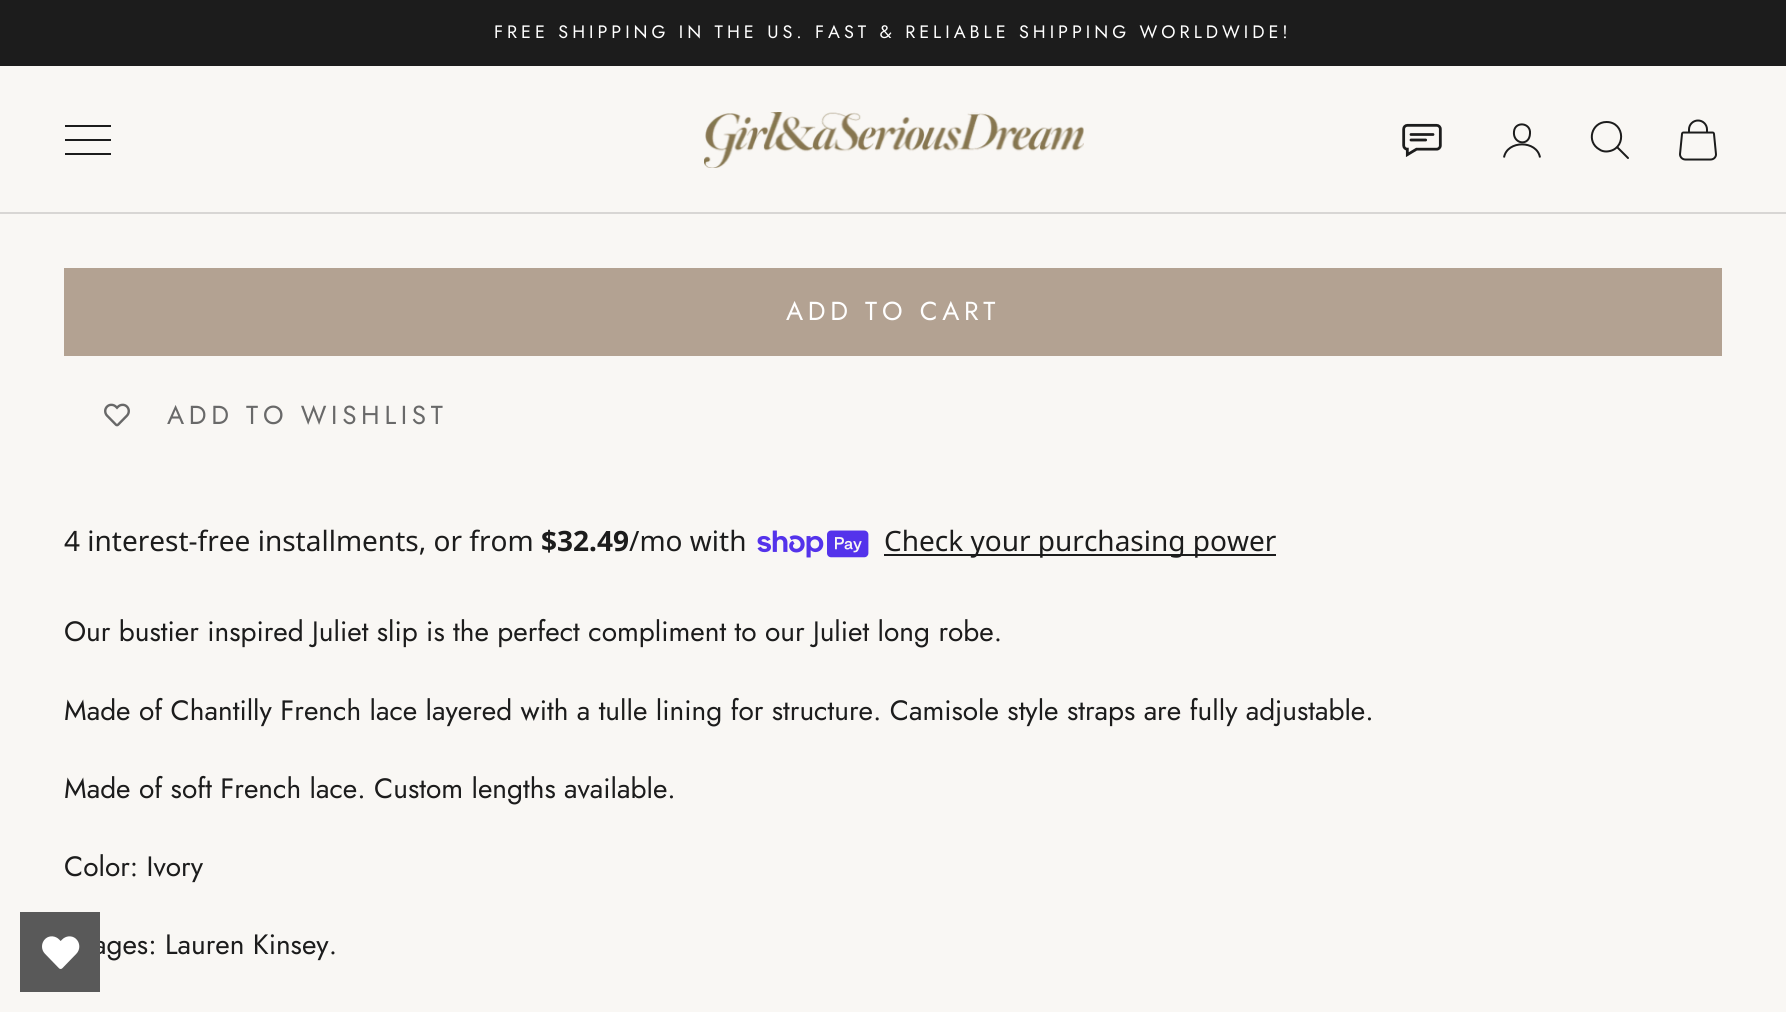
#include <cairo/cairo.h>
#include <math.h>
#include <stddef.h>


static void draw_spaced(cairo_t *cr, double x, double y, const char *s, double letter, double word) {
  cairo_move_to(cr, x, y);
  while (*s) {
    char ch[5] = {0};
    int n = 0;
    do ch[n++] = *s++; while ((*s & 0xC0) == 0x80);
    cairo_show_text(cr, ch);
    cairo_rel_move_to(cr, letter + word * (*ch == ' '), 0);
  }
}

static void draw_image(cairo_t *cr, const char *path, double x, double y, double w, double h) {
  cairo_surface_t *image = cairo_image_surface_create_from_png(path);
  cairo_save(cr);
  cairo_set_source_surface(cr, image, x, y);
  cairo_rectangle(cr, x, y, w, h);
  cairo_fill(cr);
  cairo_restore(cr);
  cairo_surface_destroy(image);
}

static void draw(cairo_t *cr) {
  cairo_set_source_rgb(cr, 249 / 255.0, 247 / 255.0, 244 / 255.0);
  cairo_paint(cr);
  cairo_set_source_rgb(cr, 28 / 255.0, 28 / 255.0, 28 / 255.0);
  cairo_rectangle(cr, 0, 0, 1786, 66);
  cairo_fill(cr);
  cairo_set_source_rgb(cr, 216 / 255.0, 214 / 255.0, 212 / 255.0);
  cairo_rectangle(cr, 0, 212, 1786, 2);
  cairo_fill(cr);
  cairo_new_path(cr);
  cairo_move_to(cr, 66, 154);
  cairo_line_to(cr, 110, 154);
  cairo_move_to(cr, 66, 140);
  cairo_line_to(cr, 110, 140);
  cairo_move_to(cr, 66, 126);
  cairo_line_to(cr, 110, 126);
  cairo_set_source_rgb(cr, 28 / 255.0, 28 / 255.0, 28 / 255.0);
  cairo_set_line_cap(cr, CAIRO_LINE_CAP_SQUARE);
  cairo_stroke(cr);
  draw_image(cr, "images/1.png", 704, 112, 380, 56);
  draw_image(cr, "images/2.png", 1402, 123, 40, 34);
  cairo_new_path(cr);
  cairo_move_to(cr, 1530, 133.5);
  cairo_curve_to(cr, 1529.5, 147, 1512.5, 144, 1514, 131.5);
  cairo_curve_to(cr, 1515, 121, 1531, 122.5, 1530, 133.5);
  cairo_close_path(cr);
  cairo_set_line_cap(cr, CAIRO_LINE_CAP_ROUND);
  cairo_set_line_join(cr, CAIRO_LINE_JOIN_ROUND);
  cairo_stroke(cr);
  cairo_new_path(cr);
  cairo_move_to(cr, 1504, 157.5);
  cairo_curve_to(cr, 1507, 140, 1537, 140, 1540, 157.5);
  cairo_set_line_cap(cr, CAIRO_LINE_CAP_BUTT);
  cairo_set_line_join(cr, CAIRO_LINE_JOIN_MITER);
  cairo_stroke(cr);
  cairo_new_path(cr);
  cairo_move_to(cr, 1606.5, 122);
  cairo_curve_to(cr, 1591.5, 122, 1586, 142, 1599.5, 149.5);
  cairo_curve_to(cr, 1601.5, 151, 1604, 151.5, 1606.5, 151.5);
  cairo_curve_to(cr, 1626.5, 150.5, 1625.5, 122, 1606.5, 122);
  cairo_close_path(cr);
  cairo_stroke(cr);
  cairo_new_path(cr);
  cairo_move_to(cr, 1617.5, 147.5);
  cairo_line_to(cr, 1628, 158);
  cairo_set_line_cap(cr, CAIRO_LINE_CAP_ROUND);
  cairo_stroke(cr);
  draw_image(cr, "images/3.png", 1679, 119, 38, 42);
  cairo_set_source_rgb(cr, 179 / 255.0, 162 / 255.0, 146 / 255.0);
  cairo_rectangle(cr, 65, 269, 1656, 86);
  cairo_fill_preserve(cr);
  cairo_set_line_cap(cr, CAIRO_LINE_CAP_BUTT);
  cairo_stroke(cr);
  draw_image(cr, "images/5.png", 104, 403, 26, 24);
  draw_image(cr, "images/6.png", 757, 530, 112, 28);
  cairo_set_source_rgb(cr, 28 / 255.0, 28 / 255.0, 28 / 255.0);
  cairo_rectangle(cr, 884, 554, 392, 2);
  cairo_fill(cr);
  cairo_select_font_face(cr, "Jost", CAIRO_FONT_SLANT_NORMAL, CAIRO_FONT_WEIGHT_NORMAL);
  cairo_set_font_size(cr, 18);
  cairo_set_source_rgb(cr, 1, 1, 1);
  draw_spaced(cr, 494, 38, "FREE SHIPPING IN THE US. FAST & RELIABLE SHIPPING WORLDWIDE!", 4, 0);
  cairo_set_font_size(cr, 26);
  draw_spaced(cr, 786, 320, "ADD TO CART", 4.7, 0);
  cairo_set_source_rgb(cr, 105 / 255.0, 105 / 255.0, 105 / 255.0);
  draw_spaced(cr, 167, 424, "ADD TO WISHLIST", 4.7, 0);
  cairo_select_font_face(cr, "Noto Sans", CAIRO_FONT_SLANT_NORMAL, CAIRO_FONT_WEIGHT_NORMAL);
  cairo_set_font_size(cr, 28);
  cairo_set_source_rgb(cr, 28 / 255.0, 28 / 255.0, 28 / 255.0);
  cairo_move_to(cr, 64, 551);
  cairo_show_text(cr, "4 interest-free installments, or from");
  cairo_select_font_face(cr, "Noto Sans", CAIRO_FONT_SLANT_NORMAL, CAIRO_FONT_WEIGHT_BOLD);
  cairo_move_to(cr, 541, 551);
  cairo_show_text(cr, "$32.49");
  cairo_select_font_face(cr, "Noto Sans", CAIRO_FONT_SLANT_NORMAL, CAIRO_FONT_WEIGHT_NORMAL);
  cairo_move_to(cr, 629, 551);
  cairo_show_text(cr, "/mo with");
  cairo_move_to(cr, 884, 551);
  cairo_show_text(cr, "Check your purchasing power");
  cairo_select_font_face(cr, "Jost", CAIRO_FONT_SLANT_NORMAL, CAIRO_FONT_WEIGHT_NORMAL);
  cairo_move_to(cr, 64, 641);
  cairo_show_text(cr, "Our bustier inspired Juliet slip is the perfect compliment to our Juliet long robe.");
  cairo_move_to(cr, 64, 720);
  cairo_show_text(cr, "Made of Chantilly French lace layered with a tulle lining for structure. Camisole style straps are fully adjustable.");
  cairo_move_to(cr, 64, 798);
  cairo_show_text(cr, "Made of soft French lace. Custom lengths available.");
  cairo_move_to(cr, 64, 876);
  cairo_show_text(cr, "Color: Ivory");
  cairo_move_to(cr, 93, 954);
  cairo_show_text(cr, "ages: Lauren Kinsey.");
  cairo_set_source_rgb(cr, 89 / 255.0, 89 / 255.0, 89 / 255.0);
  cairo_rectangle(cr, 20, 912, 80, 80);
  cairo_fill(cr);
  draw_image(cr, "images/4.png", 42, 936, 38, 33);
}

int main(void) {
  cairo_surface_t *surface = cairo_image_surface_create(CAIRO_FORMAT_RGB24, 1786, 1012);
  cairo_t *cr = cairo_create(surface);
  cairo_font_options_t *options = cairo_font_options_create();
  cairo_font_options_set_hint_metrics(options, CAIRO_HINT_METRICS_OFF);
  cairo_font_options_set_hint_style(options, CAIRO_HINT_STYLE_NONE);
  cairo_set_font_options(cr, options);
  cairo_set_miter_limit(cr, 4);
  draw(cr);
  cairo_surface_write_to_png(surface, "out.png");
  cairo_font_options_destroy(options);
  cairo_destroy(cr);
  cairo_surface_destroy(surface);
  return 0;
}
